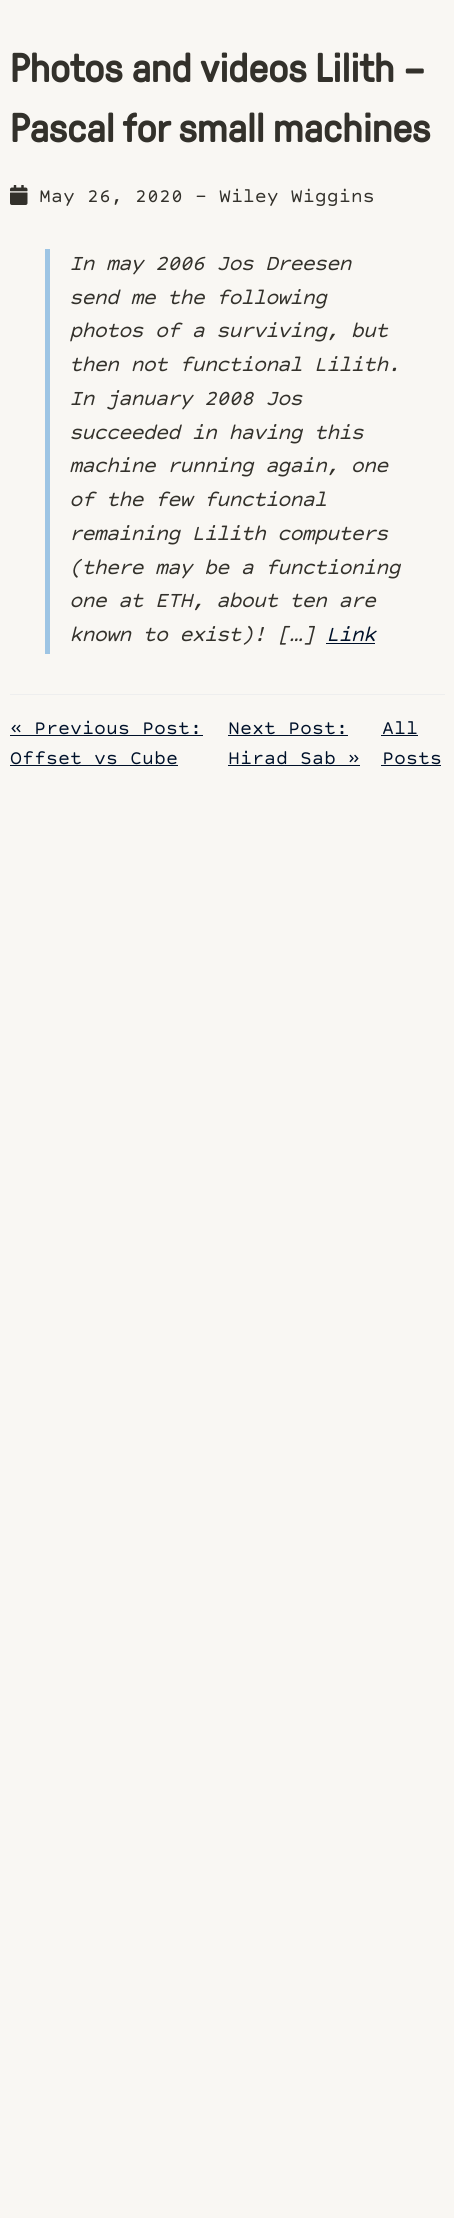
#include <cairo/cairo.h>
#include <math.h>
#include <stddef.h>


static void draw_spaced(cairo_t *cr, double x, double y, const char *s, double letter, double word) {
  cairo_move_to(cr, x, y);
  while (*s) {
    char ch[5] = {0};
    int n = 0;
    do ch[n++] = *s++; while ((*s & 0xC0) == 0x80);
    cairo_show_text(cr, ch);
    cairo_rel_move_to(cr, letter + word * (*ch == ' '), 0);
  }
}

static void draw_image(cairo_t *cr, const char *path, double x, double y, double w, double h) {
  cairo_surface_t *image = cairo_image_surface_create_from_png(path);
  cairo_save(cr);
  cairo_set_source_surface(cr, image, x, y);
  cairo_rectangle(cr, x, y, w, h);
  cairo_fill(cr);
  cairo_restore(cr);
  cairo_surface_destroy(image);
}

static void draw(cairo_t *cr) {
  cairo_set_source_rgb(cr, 249 / 255.0, 247 / 255.0, 243 / 255.0);
  cairo_paint(cr);
  draw_image(cr, "images/1.png", 10, 185, 18, 20);
  cairo_set_source_rgb(cr, 158 / 255.0, 197 / 255.0, 228 / 255.0);
  cairo_rectangle(cr, 45, 249, 5, 405);
  cairo_fill(cr);
  cairo_set_source_rgb(cr, 0, 17 / 255.0, 42 / 255.0);
  cairo_rectangle(cr, 326, 643, 49, 1);
  cairo_fill(cr);
  cairo_set_source_rgb(cr, 238 / 255.0, 238 / 255.0, 238 / 255.0);
  cairo_rectangle(cr, 10, 694, 435, 1);
  cairo_fill(cr);
  cairo_set_source_rgb(cr, 0, 17 / 255.0, 42 / 255.0);
  cairo_rectangle(cr, 10, 735, 193, 1);
  cairo_fill(cr);
  cairo_rectangle(cr, 10, 765, 168, 1);
  cairo_fill(cr);
  cairo_rectangle(cr, 228, 735, 120, 1);
  cairo_fill(cr);
  cairo_rectangle(cr, 228, 765, 132, 1);
  cairo_fill(cr);
  cairo_rectangle(cr, 381, 735, 37, 1);
  cairo_fill(cr);
  cairo_rectangle(cr, 381, 765, 60, 1);
  cairo_fill(cr);
  cairo_select_font_face(cr, "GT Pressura", CAIRO_FONT_SLANT_NORMAL, CAIRO_FONT_WEIGHT_BOLD);
  cairo_set_font_size(cr, 40);
  cairo_set_source_rgb(cr, 51 / 255.0, 49 / 255.0, 43 / 255.0);
  draw_spaced(cr, 10, 82, "Photos and videos Lilith –", 0, -0.5);
  draw_spaced(cr, 10, 142, "Pascal for small machines", 0, -1);
  cairo_select_font_face(cr, "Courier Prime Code", CAIRO_FONT_SLANT_NORMAL, CAIRO_FONT_WEIGHT_NORMAL);
  cairo_set_font_size(cr, 20);
  cairo_move_to(cr, 39, 202);
  cairo_show_text(cr, "May 26, 2020 - Wiley Wiggins");
  cairo_select_font_face(cr, "Courier Prime Code", CAIRO_FONT_SLANT_ITALIC, CAIRO_FONT_WEIGHT_NORMAL);
  cairo_set_font_size(cr, 22.5);
  draw_spaced(cr, 69, 270, "In may 2006 Jos Dreesen", -1.25, 0);
  draw_spaced(cr, 69, 304, "send me the following", -1.25, 0);
  draw_spaced(cr, 69, 337, "photos of a surviving, but", -1.25, 0);
  draw_spaced(cr, 69, 371, "then not functional Lilith.", -1.25, 0);
  draw_spaced(cr, 69, 405, "In january 2008 Jos", -1.25, 0);
  draw_spaced(cr, 69, 439, "succeeded in having this", -1.25, 0);
  draw_spaced(cr, 69, 472, "machine running again, one", -1.25, 0);
  draw_spaced(cr, 69, 506, "of the few functional", -1.25, 0);
  draw_spaced(cr, 69, 540, "remaining Lilith computers", -1.25, 0);
  draw_spaced(cr, 69, 574, "(there may be a functioning", -1.25, 0);
  draw_spaced(cr, 69, 607, "one at ETH, about ten are", -1.25, 0);
  draw_spaced(cr, 69, 641, "known to exist)! […]", -1.25, 0);
  cairo_set_source_rgb(cr, 0, 17 / 255.0, 42 / 255.0);
  draw_spaced(cr, 326, 641, "Link", -1.25, 0);
  cairo_select_font_face(cr, "Courier Prime Code", CAIRO_FONT_SLANT_NORMAL, CAIRO_FONT_WEIGHT_NORMAL);
  cairo_set_font_size(cr, 20);
  cairo_move_to(cr, 10, 734);
  cairo_show_text(cr, "« Previous Post:");
  cairo_move_to(cr, 10, 764);
  cairo_show_text(cr, "Offset vs Cube");
  cairo_move_to(cr, 228, 734);
  cairo_show_text(cr, "Next Post:");
  cairo_move_to(cr, 228, 764);
  cairo_show_text(cr, "Hirad Sab »");
  cairo_move_to(cr, 382, 734);
  cairo_show_text(cr, "All");
  cairo_move_to(cr, 382, 764);
  cairo_show_text(cr, "Posts");
}

int main(void) {
  cairo_surface_t *surface = cairo_image_surface_create(CAIRO_FORMAT_RGB24, 454, 2218);
  cairo_t *cr = cairo_create(surface);
  cairo_font_options_t *options = cairo_font_options_create();
  cairo_font_options_set_hint_metrics(options, CAIRO_HINT_METRICS_OFF);
  cairo_font_options_set_hint_style(options, CAIRO_HINT_STYLE_NONE);
  cairo_set_font_options(cr, options);
  cairo_set_miter_limit(cr, 4);
  draw(cr);
  cairo_surface_write_to_png(surface, "out.png");
  cairo_font_options_destroy(options);
  cairo_destroy(cr);
  cairo_surface_destroy(surface);
  return 0;
}
